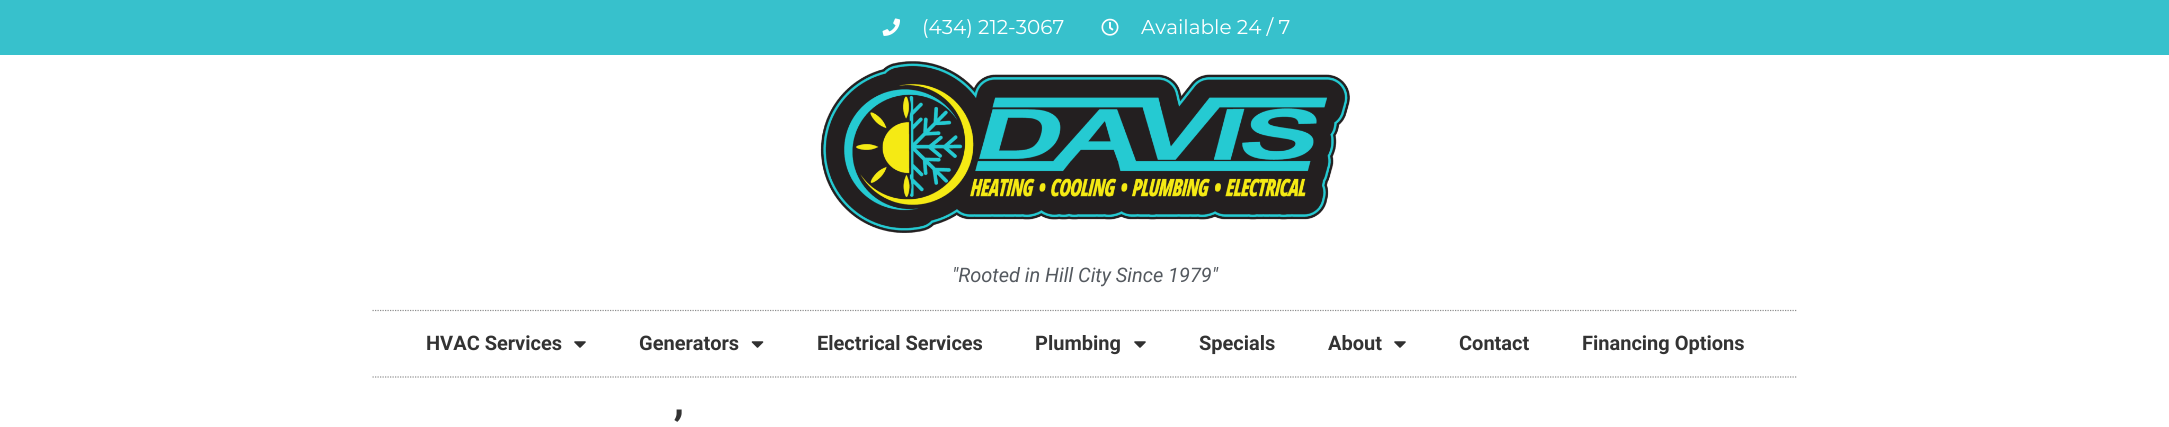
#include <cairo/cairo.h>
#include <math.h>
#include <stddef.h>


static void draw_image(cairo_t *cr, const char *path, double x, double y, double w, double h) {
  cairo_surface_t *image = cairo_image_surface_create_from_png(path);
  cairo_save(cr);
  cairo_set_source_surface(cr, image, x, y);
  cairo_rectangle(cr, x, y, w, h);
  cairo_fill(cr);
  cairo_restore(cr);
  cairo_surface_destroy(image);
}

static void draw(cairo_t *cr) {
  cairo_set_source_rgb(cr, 1, 1, 1);
  cairo_paint(cr);
  cairo_set_source_rgb(cr, 55 / 255.0, 193 / 255.0, 204 / 255.0);
  cairo_rectangle(cr, 0, 0, 2169, 55);
  cairo_fill(cr);
  draw_image(cr, "images/1.png", 882, 18, 18, 18);
  draw_image(cr, "images/2.png", 1101, 18, 18, 18);
  draw_image(cr, "images/3.png", 820, 61, 530, 172);
  cairo_new_path(cr);
  cairo_move_to(cr, 372.5, 310.5);
  cairo_line_to(cr, 1797.5, 310.5);
  cairo_set_source_rgb(cr, 142 / 255.0, 142 / 255.0, 142 / 255.0);
  cairo_set_line_width(cr, 1.2);
  cairo_set_dash(cr, (double[]){1.25, 1.25}, 2, 0);
  cairo_stroke(cr);
  cairo_new_path(cr);
  cairo_move_to(cr, 372.5, 377);
  cairo_line_to(cr, 1797.5, 377);
  cairo_stroke(cr);
  draw_image(cr, "images/4.png", 574, 341, 12, 7);
  draw_image(cr, "images/5.png", 751, 341, 13, 7);
  draw_image(cr, "images/4.png", 1134, 341, 12, 7);
  draw_image(cr, "images/4.png", 1394, 341, 12, 7);
  cairo_select_font_face(cr, "Montserrat", CAIRO_FONT_SLANT_NORMAL, CAIRO_FONT_WEIGHT_NORMAL);
  cairo_set_font_size(cr, 20);
  cairo_set_source_rgb(cr, 1, 1, 1);
  cairo_move_to(cr, 922, 34);
  cairo_show_text(cr, "(434) 212-3067");
  cairo_move_to(cr, 1141, 34);
  cairo_show_text(cr, "Available 24 / 7");
  cairo_select_font_face(cr, "Roboto", CAIRO_FONT_SLANT_ITALIC, CAIRO_FONT_WEIGHT_NORMAL);
  cairo_set_source_rgb(cr, 84 / 255.0, 89 / 255.0, 95 / 255.0);
  cairo_move_to(cr, 952, 282);
  cairo_show_text(cr, "\"Rooted in Hill City Since 1979\"");
  cairo_select_font_face(cr, "Roboto", CAIRO_FONT_SLANT_NORMAL, CAIRO_FONT_WEIGHT_BOLD);
  cairo_set_source_rgb(cr, 51 / 255.0, 51 / 255.0, 51 / 255.0);
  cairo_move_to(cr, 426, 350);
  cairo_show_text(cr, "HVAC Services");
  cairo_move_to(cr, 639, 350);
  cairo_show_text(cr, "Generators");
  cairo_move_to(cr, 817, 350);
  cairo_show_text(cr, "Electrical Services");
  cairo_move_to(cr, 1035, 350);
  cairo_show_text(cr, "Plumbing");
  cairo_move_to(cr, 1199, 350);
  cairo_show_text(cr, "Specials");
  cairo_move_to(cr, 1328, 350);
  cairo_show_text(cr, "About");
  cairo_move_to(cr, 1459, 350);
  cairo_show_text(cr, "Contact");
  cairo_move_to(cr, 1582, 350);
  cairo_show_text(cr, "Financing Options");
  cairo_select_font_face(cr, "Roboto Medium", CAIRO_FONT_SLANT_NORMAL, CAIRO_FONT_WEIGHT_NORMAL);
  cairo_set_font_size(cr, 50);
  cairo_move_to(cr, 673, 447);
  cairo_show_text(cr, "’");
}

int main(void) {
  cairo_surface_t *surface = cairo_image_surface_create(CAIRO_FORMAT_RGB24, 2169, 427);
  cairo_t *cr = cairo_create(surface);
  cairo_font_options_t *options = cairo_font_options_create();
  cairo_font_options_set_hint_metrics(options, CAIRO_HINT_METRICS_OFF);
  cairo_font_options_set_hint_style(options, CAIRO_HINT_STYLE_NONE);
  cairo_set_font_options(cr, options);
  cairo_set_miter_limit(cr, 4);
  draw(cr);
  cairo_surface_write_to_png(surface, "out.png");
  cairo_font_options_destroy(options);
  cairo_destroy(cr);
  cairo_surface_destroy(surface);
  return 0;
}
